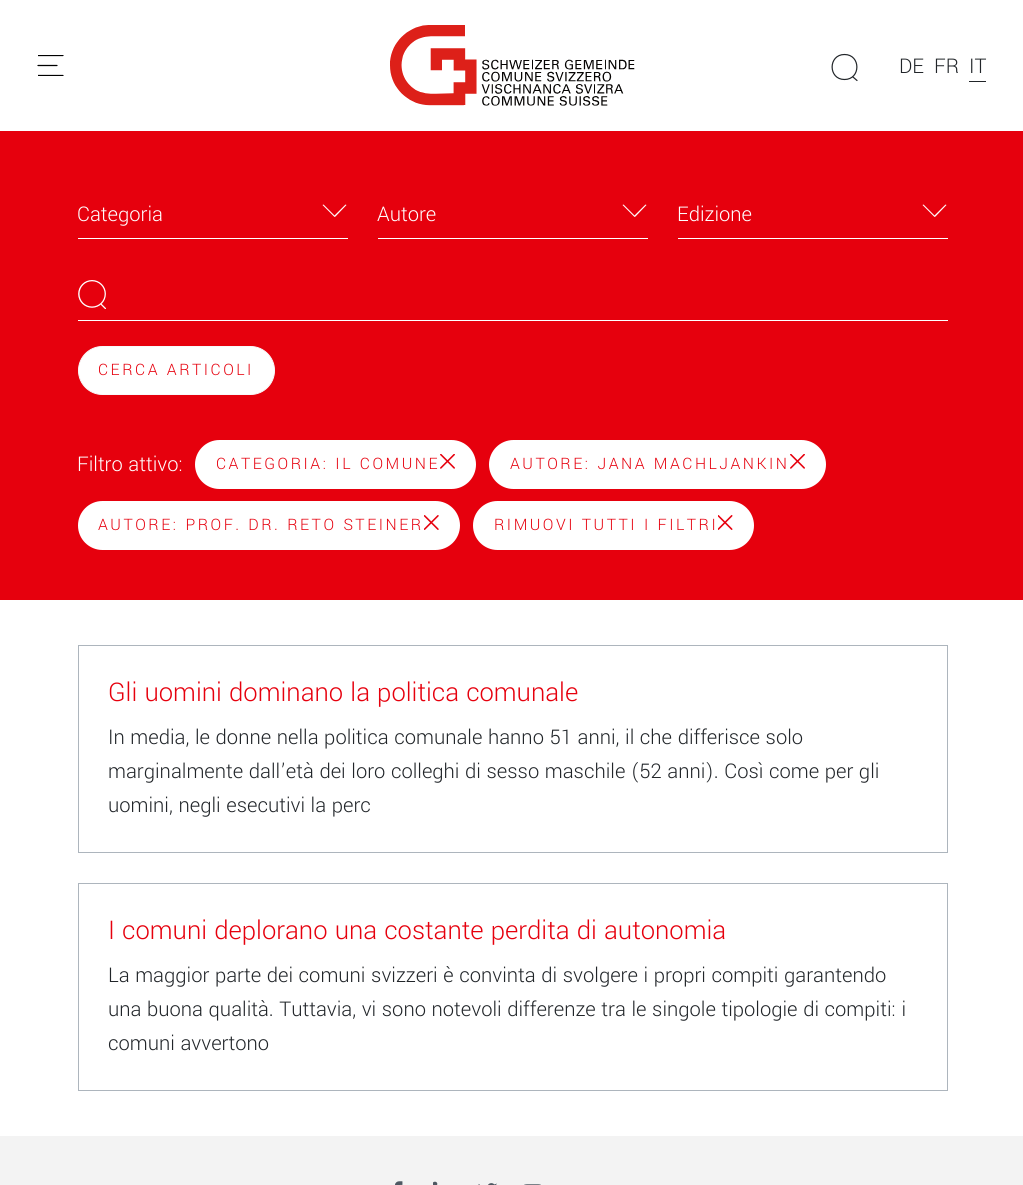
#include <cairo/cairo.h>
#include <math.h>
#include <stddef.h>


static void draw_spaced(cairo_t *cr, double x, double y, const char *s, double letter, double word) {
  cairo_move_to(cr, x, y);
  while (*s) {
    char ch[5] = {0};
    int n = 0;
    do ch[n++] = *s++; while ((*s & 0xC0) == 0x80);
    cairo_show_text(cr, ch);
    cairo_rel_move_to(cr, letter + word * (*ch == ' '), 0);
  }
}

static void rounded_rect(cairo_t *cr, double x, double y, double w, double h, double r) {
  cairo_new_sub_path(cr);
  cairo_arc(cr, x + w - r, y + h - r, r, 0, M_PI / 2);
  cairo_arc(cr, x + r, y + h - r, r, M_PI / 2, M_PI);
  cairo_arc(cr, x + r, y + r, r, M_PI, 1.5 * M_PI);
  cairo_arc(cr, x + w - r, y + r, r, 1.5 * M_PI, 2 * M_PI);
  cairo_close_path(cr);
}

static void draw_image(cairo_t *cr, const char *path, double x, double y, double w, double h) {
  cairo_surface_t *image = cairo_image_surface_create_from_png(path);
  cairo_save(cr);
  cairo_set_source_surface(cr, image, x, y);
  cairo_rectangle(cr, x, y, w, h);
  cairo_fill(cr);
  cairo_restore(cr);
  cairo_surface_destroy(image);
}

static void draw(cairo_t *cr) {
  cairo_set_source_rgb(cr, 1, 1, 1);
  cairo_paint(cr);
  cairo_save(cr);
  cairo_rectangle(cr, 38, 55, 26, 21);
  cairo_clip(cr);
  cairo_new_path(cr);
  cairo_move_to(cr, 38, 75.5);
  cairo_line_to(cr, 63, 75.5);
  cairo_set_source_rgb(cr, 0, 0, 0);
  cairo_set_line_width(cr, 1.2);
  cairo_set_line_cap(cr, CAIRO_LINE_CAP_ROUND);
  cairo_stroke(cr);
  cairo_restore(cr);
  cairo_new_path(cr);
  cairo_move_to(cr, 38, 65.5);
  cairo_line_to(cr, 57, 65.5);
  cairo_set_source_rgb(cr, 0, 0, 0);
  cairo_set_line_width(cr, 1.2);
  cairo_set_line_cap(cr, CAIRO_LINE_CAP_ROUND);
  cairo_stroke(cr);
  cairo_save(cr);
  cairo_rectangle(cr, 38, 55, 26, 21);
  cairo_clip(cr);
  cairo_new_path(cr);
  cairo_move_to(cr, 38, 55.5);
  cairo_line_to(cr, 63, 55.5);
  cairo_stroke(cr);
  cairo_restore(cr);
  draw_image(cr, "images/1.png", 390, 25, 245, 81);
  cairo_new_path(cr);
  cairo_move_to(cr, 844.5, 54.5);
  cairo_curve_to(cr, 828, 54.5, 828, 79.5, 844.5, 79.5);
  cairo_curve_to(cr, 861, 79.5, 861, 54.5, 844.5, 54.5);
  cairo_close_path(cr);
  cairo_set_source_rgb(cr, 33 / 255.0, 37 / 255.0, 41 / 255.0);
  cairo_set_line_cap(cr, CAIRO_LINE_CAP_BUTT);
  cairo_stroke(cr);
  cairo_new_path(cr);
  cairo_move_to(cr, 853, 77);
  cairo_line_to(cr, 857, 80.5);
  cairo_set_line_cap(cr, CAIRO_LINE_CAP_ROUND);
  cairo_stroke(cr);
  cairo_rectangle(cr, 969, 81, 17, 1);
  cairo_fill(cr);
  cairo_set_source_rgb(cr, 230 / 255.0, 0, 13 / 255.0);
  cairo_rectangle(cr, 0, 131, 1023, 469);
  cairo_fill(cr);
  cairo_set_source_rgb(cr, 1, 1, 1);
  cairo_rectangle(cr, 78, 238, 270, 1);
  cairo_fill(cr);
  cairo_new_path(cr);
  cairo_move_to(cr, 335.5, 216.5);
  cairo_line_to(cr, 346.5, 205);
  cairo_line_to(cr, 345.5, 204.5);
  cairo_line_to(cr, 334.5, 215.5);
  cairo_line_to(cr, 323.5, 204.5);
  cairo_line_to(cr, 322.5, 205);
  cairo_line_to(cr, 334.5, 217);
  cairo_close_path(cr);
  cairo_fill(cr);
  cairo_rectangle(cr, 378, 238, 270, 1);
  cairo_fill(cr);
  cairo_new_path(cr);
  cairo_move_to(cr, 635.5, 216.5);
  cairo_line_to(cr, 646.5, 205);
  cairo_line_to(cr, 645.5, 204.5);
  cairo_line_to(cr, 634.5, 215.5);
  cairo_line_to(cr, 623.5, 204.5);
  cairo_line_to(cr, 622.5, 205);
  cairo_line_to(cr, 634.5, 217);
  cairo_close_path(cr);
  cairo_fill(cr);
  cairo_rectangle(cr, 678, 238, 270, 1);
  cairo_fill(cr);
  cairo_new_path(cr);
  cairo_move_to(cr, 935.5, 216.5);
  cairo_line_to(cr, 946.5, 205);
  cairo_line_to(cr, 945.5, 204.5);
  cairo_line_to(cr, 934.5, 215.5);
  cairo_line_to(cr, 923.5, 204.5);
  cairo_line_to(cr, 922.5, 205);
  cairo_line_to(cr, 934.5, 217);
  cairo_close_path(cr);
  cairo_fill(cr);
  draw_image(cr, "images/2.png", 78, 280, 28, 29);
  cairo_rectangle(cr, 78, 320, 870, 1);
  cairo_fill(cr);
  rounded_rect(cr, 78.5, 346.5, 196, 48, 24);
  cairo_fill_preserve(cr);
  cairo_set_source_rgb(cr, 248 / 255.0, 249 / 255.0, 250 / 255.0);
  cairo_set_line_width(cr, 1);
  cairo_set_line_cap(cr, CAIRO_LINE_CAP_BUTT);
  cairo_stroke(cr);
  cairo_set_source_rgb(cr, 1, 1, 1);
  rounded_rect(cr, 195, 440, 281, 49, 24.5);
  cairo_fill(cr);
  draw_image(cr, "images/3.png", 440, 454, 15, 15);
  rounded_rect(cr, 489, 440, 337, 49, 24.5);
  cairo_fill(cr);
  draw_image(cr, "images/3.png", 790, 454, 15, 15);
  rounded_rect(cr, 78, 501, 382, 49, 24.5);
  cairo_fill(cr);
  draw_image(cr, "images/4.png", 424, 515, 15, 15);
  rounded_rect(cr, 473, 501, 281, 49, 24.5);
  cairo_fill(cr);
  draw_image(cr, "images/5.png", 718, 515, 15, 15);
  cairo_rectangle(cr, 78.5, 645.5, 869, 207);
  cairo_set_source_rgb(cr, 173 / 255.0, 181 / 255.0, 189 / 255.0);
  cairo_stroke(cr);
  cairo_rectangle(cr, 78.5, 883.5, 869, 207);
  cairo_stroke(cr);
  cairo_set_source_rgb(cr, 243 / 255.0, 243 / 255.0, 243 / 255.0);
  cairo_rectangle(cr, 0, 1136, 1023, 49);
  cairo_fill(cr);
  draw_image(cr, "images/6.png", 395, 1181, 8, 4);
  draw_image(cr, "images/7.png", 433, 1181, 5, 4);
  draw_image(cr, "images/8.png", 478, 1183, 19, 2);
  draw_image(cr, "images/9.png", 524, 1184, 17, 1);
  cairo_select_font_face(cr, "Yantramanav Light", CAIRO_FONT_SLANT_NORMAL, CAIRO_FONT_WEIGHT_NORMAL);
  cairo_set_font_size(cr, 22.5);
  cairo_set_source_rgb(cr, 33 / 255.0, 37 / 255.0, 41 / 255.0);
  cairo_move_to(cr, 899, 73);
  cairo_show_text(cr, "DE");
  cairo_move_to(cr, 934, 73);
  cairo_show_text(cr, "FR");
  cairo_move_to(cr, 969, 73);
  cairo_show_text(cr, "IT");
  cairo_set_source_rgb(cr, 1, 1, 1);
  cairo_move_to(cr, 77, 221);
  cairo_show_text(cr, "Categoria");
  cairo_move_to(cr, 377, 221);
  cairo_show_text(cr, "Autore");
  cairo_move_to(cr, 677, 221);
  cairo_show_text(cr, "Edizione");
  cairo_set_font_size(cr, 17.5);
  cairo_set_source_rgb(cr, 230 / 255.0, 0, 13 / 255.0);
  draw_spaced(cr, 98, 375, "CERCA ARTICOLI", 2.5, 0);
  cairo_set_font_size(cr, 22.5);
  cairo_set_source_rgb(cr, 1, 1, 1);
  cairo_move_to(cr, 77, 471);
  cairo_show_text(cr, "Filtro attivo:");
  cairo_set_font_size(cr, 17.5);
  cairo_set_source_rgb(cr, 230 / 255.0, 0, 13 / 255.0);
  draw_spaced(cr, 216, 469, "CATEGORIA: IL COMUNE", 2.5, 0);
  draw_spaced(cr, 510, 469, "AUTORE: JANA MACHLJANKIN", 2.5, 0);
  draw_spaced(cr, 98, 530, "AUTORE: PROF. DR. RETO STEINER", 2.5, 0);
  draw_spaced(cr, 494, 530, "RIMUOVI TUTTI I FILTRI", 2.5, 0);
  cairo_set_font_size(cr, 28.6);
  cairo_move_to(cr, 108, 701);
  cairo_show_text(cr, "Gli uomini dominano la politica comunale");
  cairo_set_font_size(cr, 22.5);
  cairo_set_source_rgb(cr, 33 / 255.0, 37 / 255.0, 41 / 255.0);
  cairo_move_to(cr, 108, 744);
  cairo_show_text(cr, "In media, le donne nella politica comunale hanno 51 anni, il che differisce solo");
  cairo_move_to(cr, 108, 778);
  cairo_show_text(cr, "marginalmente dall’età dei loro colleghi di sesso maschile (52 anni). Così come per gli");
  cairo_move_to(cr, 108, 812);
  cairo_show_text(cr, "uomini, negli esecutivi la perc");
  cairo_set_font_size(cr, 28.6);
  cairo_set_source_rgb(cr, 230 / 255.0, 0, 13 / 255.0);
  cairo_move_to(cr, 108, 939);
  cairo_show_text(cr, "I comuni deplorano una costante perdita di autonomia");
  cairo_set_font_size(cr, 22.5);
  cairo_set_source_rgb(cr, 33 / 255.0, 37 / 255.0, 41 / 255.0);
  cairo_move_to(cr, 108, 982);
  cairo_show_text(cr, "La maggior parte dei comuni svizzeri è convinta di svolgere i propri compiti garantendo");
  cairo_move_to(cr, 108, 1016);
  cairo_show_text(cr, "una buona qualità. Tuttavia, vi sono notevoli differenze tra le singole tipologie di compiti: i");
  cairo_move_to(cr, 108, 1050);
  cairo_show_text(cr, "comuni avvertono");
}

int main(void) {
  cairo_surface_t *surface = cairo_image_surface_create(CAIRO_FORMAT_RGB24, 1023, 1185);
  cairo_t *cr = cairo_create(surface);
  cairo_font_options_t *options = cairo_font_options_create();
  cairo_font_options_set_hint_metrics(options, CAIRO_HINT_METRICS_OFF);
  cairo_font_options_set_hint_style(options, CAIRO_HINT_STYLE_NONE);
  cairo_set_font_options(cr, options);
  cairo_set_miter_limit(cr, 4);
  draw(cr);
  cairo_surface_write_to_png(surface, "out.png");
  cairo_font_options_destroy(options);
  cairo_destroy(cr);
  cairo_surface_destroy(surface);
  return 0;
}
